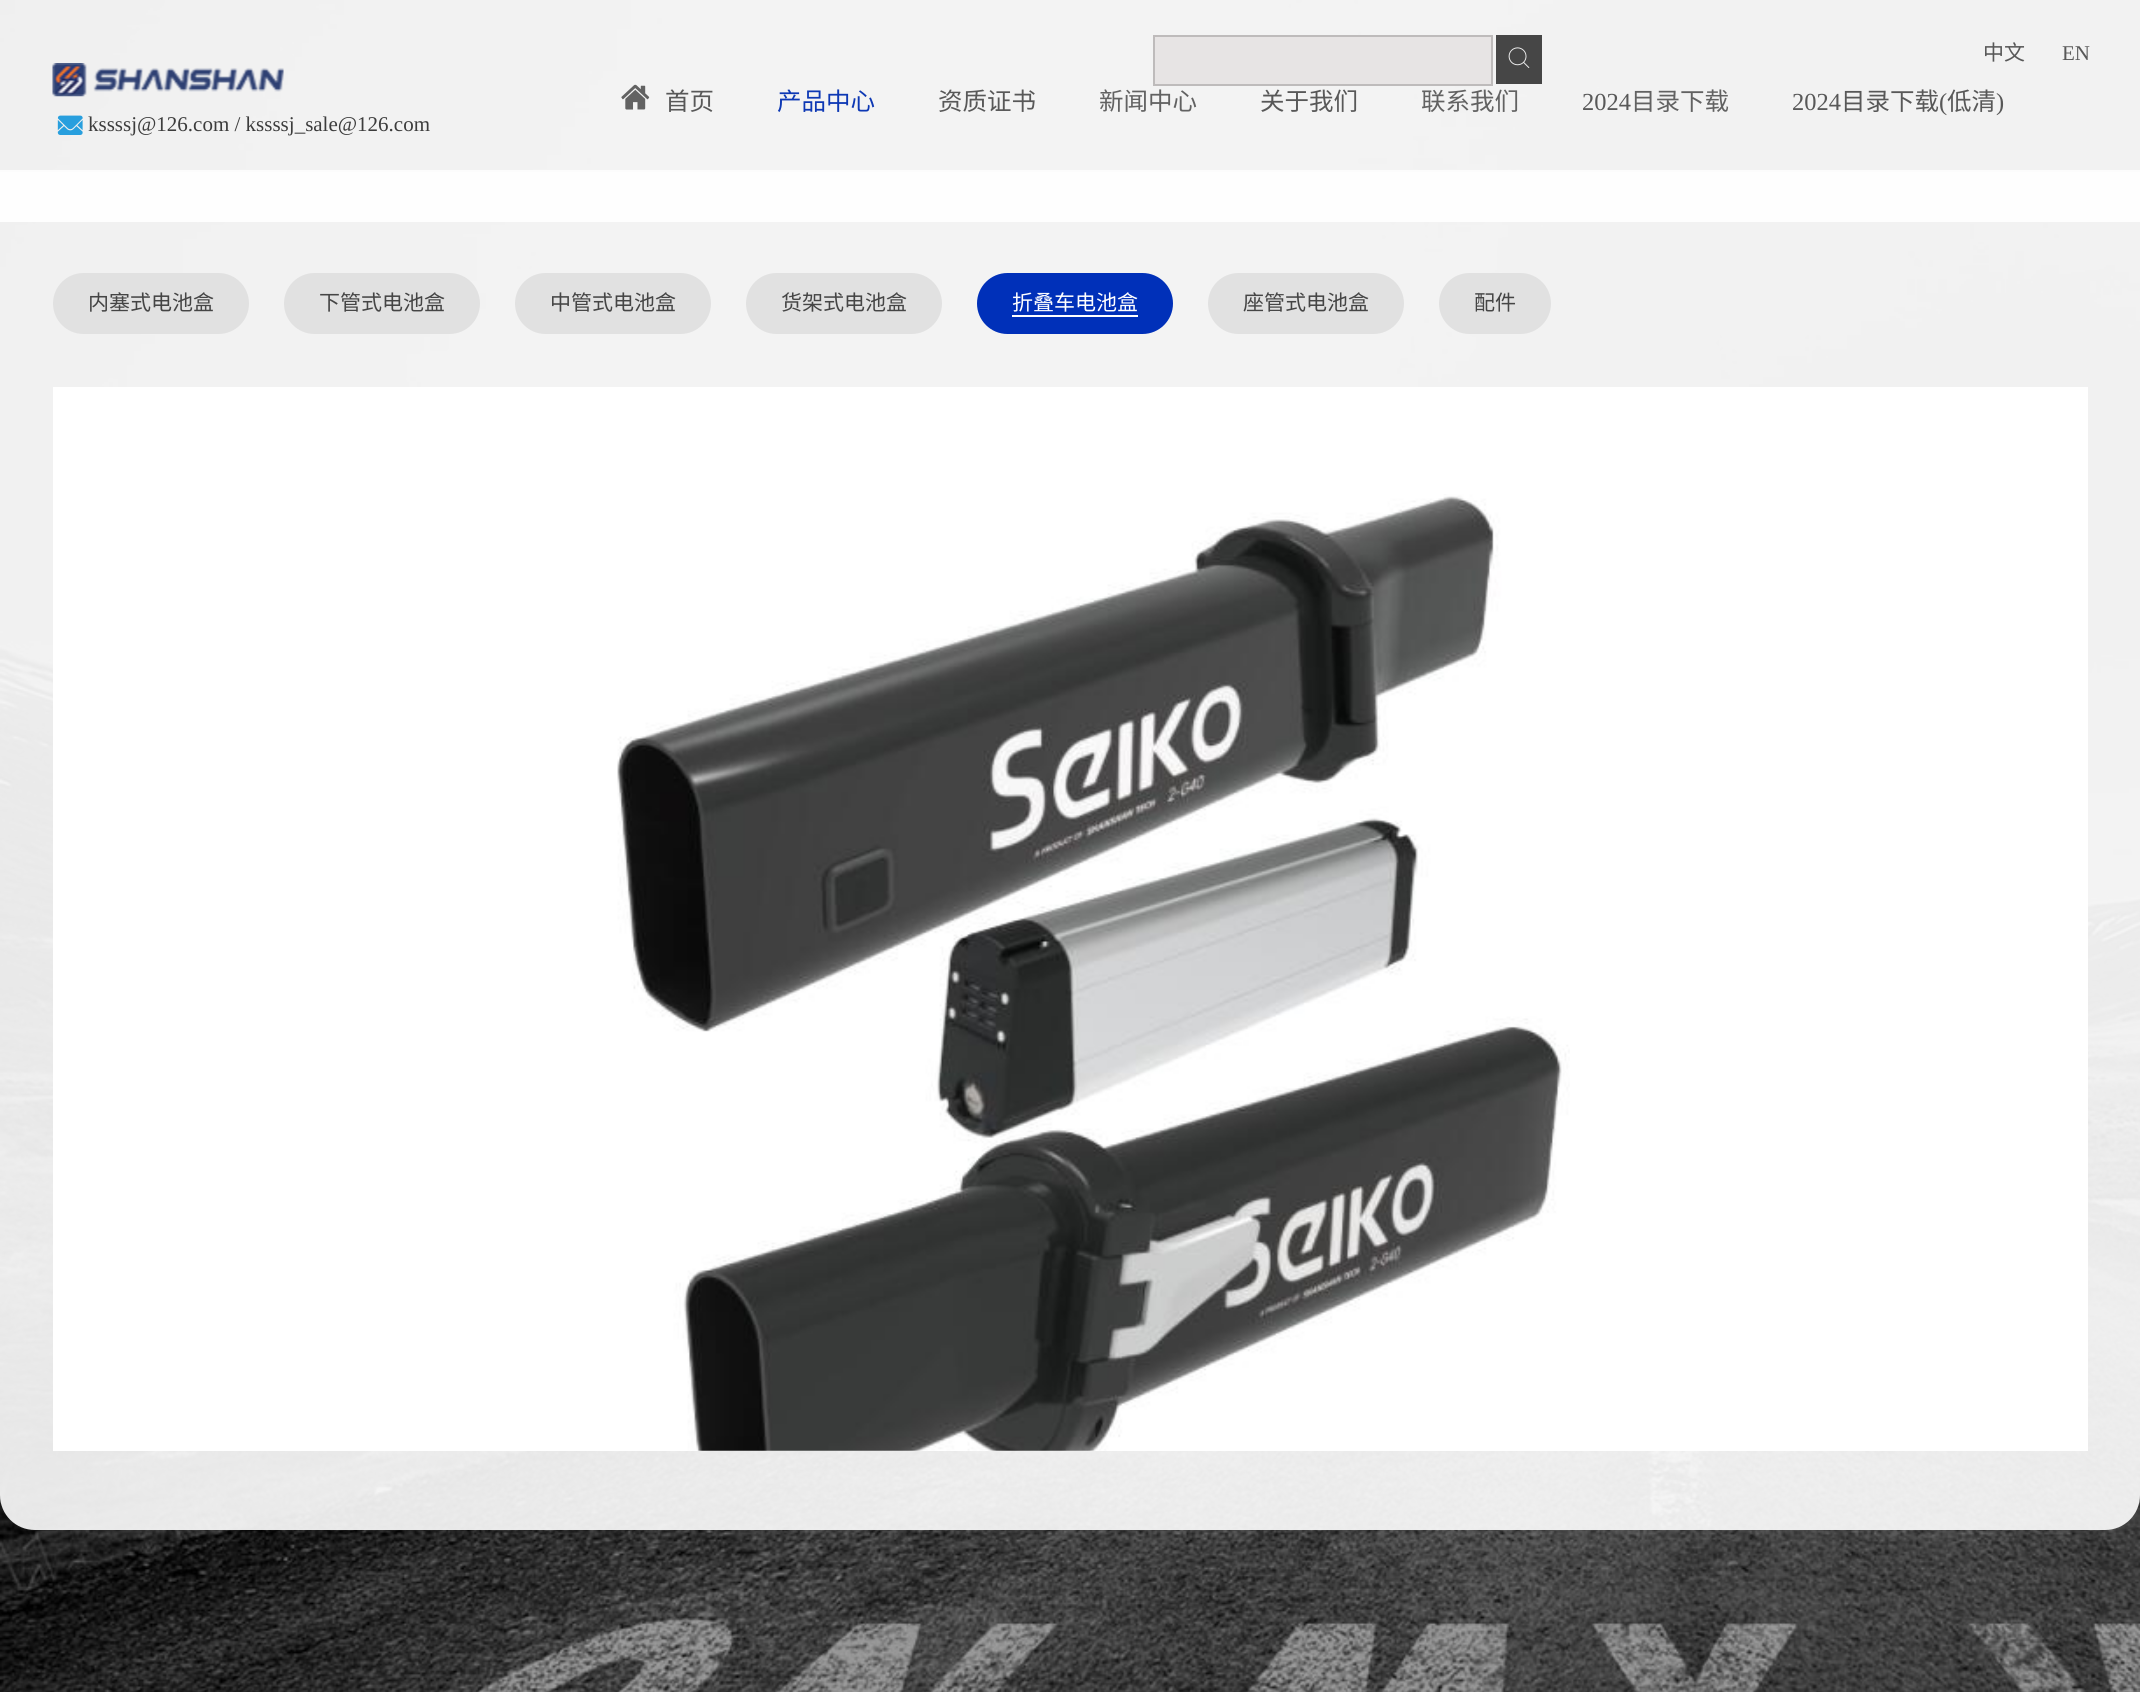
#include <cairo/cairo.h>
#include <math.h>
#include <stddef.h>


static void rounded_rect(cairo_t *cr, double x, double y, double w, double h, double r) {
  cairo_new_sub_path(cr);
  cairo_arc(cr, x + w - r, y + h - r, r, 0, M_PI / 2);
  cairo_arc(cr, x + r, y + h - r, r, M_PI / 2, M_PI);
  cairo_arc(cr, x + r, y + r, r, M_PI, 1.5 * M_PI);
  cairo_arc(cr, x + w - r, y + r, r, 1.5 * M_PI, 2 * M_PI);
  cairo_close_path(cr);
}

static void draw_image(cairo_t *cr, const char *path, double x, double y, double w, double h) {
  cairo_surface_t *image = cairo_image_surface_create_from_png(path);
  cairo_save(cr);
  cairo_set_source_surface(cr, image, x, y);
  cairo_rectangle(cr, x, y, w, h);
  cairo_fill(cr);
  cairo_restore(cr);
  cairo_surface_destroy(image);
}

static void draw(cairo_t *cr) {
  cairo_set_source_rgb(cr, 1, 1, 1);
  cairo_paint(cr);
  draw_image(cr, "images/5.png", 0, 0, 2140, 1692);
  cairo_set_source_rgba(cr, 1, 1, 1, 0.9);
  cairo_new_path(cr);
  cairo_move_to(cr, 0, 170);
  cairo_line_to(cr, 2140, 170);
  cairo_line_to(cr, 2140, 1495);
  cairo_curve_to(cr, 2140, 1514.5, 2124.5, 1530, 2105, 1530);
  cairo_line_to(cr, 35, 1530);
  cairo_curve_to(cr, 15.5, 1530, 0, 1514.5, 0, 1495);
  cairo_close_path(cr);
  cairo_fill(cr);
  cairo_set_source_rgb(cr, 222 / 255.0, 222 / 255.0, 222 / 255.0);
  cairo_rectangle(cr, 0, 170, 2140, 2);
  cairo_fill(cr);
  cairo_set_source_rgba(cr, 1, 1, 1, 0.9);
  cairo_rectangle(cr, 0, 0, 2140, 222);
  cairo_fill(cr);
  cairo_set_source_rgb(cr, 231 / 255.0, 228 / 255.0, 228 / 255.0);
  cairo_rectangle(cr, 1154, 36, 338, 49);
  cairo_fill_preserve(cr);
  cairo_set_source_rgb(cr, 190 / 255.0, 187 / 255.0, 187 / 255.0);
  cairo_stroke(cr);
  cairo_set_source_rgb(cr, 70 / 255.0, 70 / 255.0, 70 / 255.0);
  cairo_rectangle(cr, 1496, 35, 46, 49);
  cairo_fill(cr);
  draw_image(cr, "images/1.png", 1508, 47, 22, 21);
  draw_image(cr, "images/2.png", 621, 84, 29, 26);
  draw_image(cr, "images/3.png", 52, 63, 232, 34);
  draw_image(cr, "images/4.png", 57, 115, 26, 20);
  cairo_set_source_rgb(cr, 225 / 255.0, 225 / 255.0, 225 / 255.0);
  rounded_rect(cr, 53, 273, 196, 61, 30.5);
  cairo_fill(cr);
  rounded_rect(cr, 284, 273, 196, 61, 30.5);
  cairo_fill(cr);
  rounded_rect(cr, 515, 273, 196, 61, 30.5);
  cairo_fill(cr);
  rounded_rect(cr, 746, 273, 196, 61, 30.5);
  cairo_fill(cr);
  cairo_set_source_rgb(cr, 0, 48 / 255.0, 185 / 255.0);
  rounded_rect(cr, 977, 273, 196, 61, 30.5);
  cairo_fill(cr);
  cairo_set_source_rgb(cr, 1, 1, 1);
  cairo_rectangle(cr, 1012, 315, 126, 2);
  cairo_fill(cr);
  cairo_set_source_rgb(cr, 225 / 255.0, 225 / 255.0, 225 / 255.0);
  rounded_rect(cr, 1208, 273, 196, 61, 30.5);
  cairo_fill(cr);
  rounded_rect(cr, 1439, 273, 112, 61, 30.5);
  cairo_fill(cr);
  cairo_set_source_rgb(cr, 1, 1, 1);
  cairo_rectangle(cr, 53, 387, 2035, 1064);
  cairo_fill(cr);
  draw_image(cr, "images/6.png", 617, 494, 953, 957);
  cairo_select_font_face(cr, "Noto Sans CJK SC", CAIRO_FONT_SLANT_NORMAL, CAIRO_FONT_WEIGHT_NORMAL);
  cairo_set_font_size(cr, 21);
  cairo_set_source_rgb(cr, 88 / 255.0, 88 / 255.0, 88 / 255.0);
  cairo_move_to(cr, 1983, 60);
  cairo_show_text(cr, "中文");
  cairo_select_font_face(cr, "Liberation Serif", CAIRO_FONT_SLANT_NORMAL, CAIRO_FONT_WEIGHT_NORMAL);
  cairo_move_to(cr, 2062, 60);
  cairo_show_text(cr, "EN");
  cairo_select_font_face(cr, "Noto Sans CJK SC", CAIRO_FONT_SLANT_NORMAL, CAIRO_FONT_WEIGHT_NORMAL);
  cairo_set_font_size(cr, 24.5);
  cairo_move_to(cr, 665, 110);
  cairo_show_text(cr, "首页");
  cairo_set_source_rgb(cr, 13 / 255.0, 56 / 255.0, 180 / 255.0);
  cairo_move_to(cr, 777, 110);
  cairo_show_text(cr, "产品中心");
  cairo_set_source_rgb(cr, 88 / 255.0, 88 / 255.0, 88 / 255.0);
  cairo_move_to(cr, 938, 110);
  cairo_show_text(cr, "资质证书");
  cairo_set_source_rgb(cr, 98 / 255.0, 98 / 255.0, 98 / 255.0);
  cairo_move_to(cr, 1099, 110);
  cairo_show_text(cr, "新闻中心");
  cairo_set_source_rgb(cr, 88 / 255.0, 88 / 255.0, 88 / 255.0);
  cairo_move_to(cr, 1260, 110);
  cairo_show_text(cr, "关于我们");
  cairo_set_source_rgb(cr, 98 / 255.0, 98 / 255.0, 98 / 255.0);
  cairo_move_to(cr, 1421, 110);
  cairo_show_text(cr, "联系我们");
  cairo_select_font_face(cr, "Liberation Serif", CAIRO_FONT_SLANT_NORMAL, CAIRO_FONT_WEIGHT_NORMAL);
  cairo_set_source_rgb(cr, 88 / 255.0, 88 / 255.0, 88 / 255.0);
  cairo_move_to(cr, 1582, 110);
  cairo_show_text(cr, "2024");
  cairo_select_font_face(cr, "Noto Sans CJK SC", CAIRO_FONT_SLANT_NORMAL, CAIRO_FONT_WEIGHT_NORMAL);
  cairo_set_source_rgb(cr, 98 / 255.0, 98 / 255.0, 98 / 255.0);
  cairo_move_to(cr, 1631, 110);
  cairo_show_text(cr, "目录下载");
  cairo_select_font_face(cr, "Liberation Serif", CAIRO_FONT_SLANT_NORMAL, CAIRO_FONT_WEIGHT_NORMAL);
  cairo_set_source_rgb(cr, 88 / 255.0, 88 / 255.0, 88 / 255.0);
  cairo_move_to(cr, 1792, 110);
  cairo_show_text(cr, "2024");
  cairo_select_font_face(cr, "Noto Sans CJK SC", CAIRO_FONT_SLANT_NORMAL, CAIRO_FONT_WEIGHT_NORMAL);
  cairo_move_to(cr, 1841, 110);
  cairo_show_text(cr, "目录下载");
  cairo_select_font_face(cr, "Liberation Serif", CAIRO_FONT_SLANT_NORMAL, CAIRO_FONT_WEIGHT_NORMAL);
  cairo_move_to(cr, 1939, 110);
  cairo_show_text(cr, "(");
  cairo_select_font_face(cr, "Noto Sans CJK SC", CAIRO_FONT_SLANT_NORMAL, CAIRO_FONT_WEIGHT_NORMAL);
  cairo_move_to(cr, 1947, 110);
  cairo_show_text(cr, "低清");
  cairo_select_font_face(cr, "Liberation Serif", CAIRO_FONT_SLANT_NORMAL, CAIRO_FONT_WEIGHT_NORMAL);
  cairo_move_to(cr, 1996, 110);
  cairo_show_text(cr, ")");
  cairo_set_font_size(cr, 21);
  cairo_set_source_rgb(cr, 60 / 255.0, 60 / 255.0, 60 / 255.0);
  cairo_move_to(cr, 88, 131);
  cairo_show_text(cr, "kssssj@126.com / kssssj_sale@126.com");
  cairo_select_font_face(cr, "Noto Sans CJK SC", CAIRO_FONT_SLANT_NORMAL, CAIRO_FONT_WEIGHT_NORMAL);
  cairo_set_source_rgb(cr, 69 / 255.0, 69 / 255.0, 69 / 255.0);
  cairo_move_to(cr, 88, 310);
  cairo_show_text(cr, "内塞式电池盒");
  cairo_move_to(cr, 319, 310);
  cairo_show_text(cr, "下管式电池盒");
  cairo_move_to(cr, 550, 310);
  cairo_show_text(cr, "中管式电池盒");
  cairo_move_to(cr, 781, 310);
  cairo_show_text(cr, "货架式电池盒");
  cairo_set_source_rgb(cr, 1, 1, 1);
  cairo_move_to(cr, 1012, 310);
  cairo_show_text(cr, "折叠车电池盒");
  cairo_set_source_rgb(cr, 69 / 255.0, 69 / 255.0, 69 / 255.0);
  cairo_move_to(cr, 1243, 310);
  cairo_show_text(cr, "座管式电池盒");
  cairo_move_to(cr, 1474, 310);
  cairo_show_text(cr, "配件");
}

int main(void) {
  cairo_surface_t *surface = cairo_image_surface_create(CAIRO_FORMAT_RGB24, 2140, 1692);
  cairo_t *cr = cairo_create(surface);
  cairo_font_options_t *options = cairo_font_options_create();
  cairo_font_options_set_hint_metrics(options, CAIRO_HINT_METRICS_OFF);
  cairo_font_options_set_hint_style(options, CAIRO_HINT_STYLE_NONE);
  cairo_set_font_options(cr, options);
  cairo_set_miter_limit(cr, 4);
  draw(cr);
  cairo_surface_write_to_png(surface, "out.png");
  cairo_font_options_destroy(options);
  cairo_destroy(cr);
  cairo_surface_destroy(surface);
  return 0;
}
